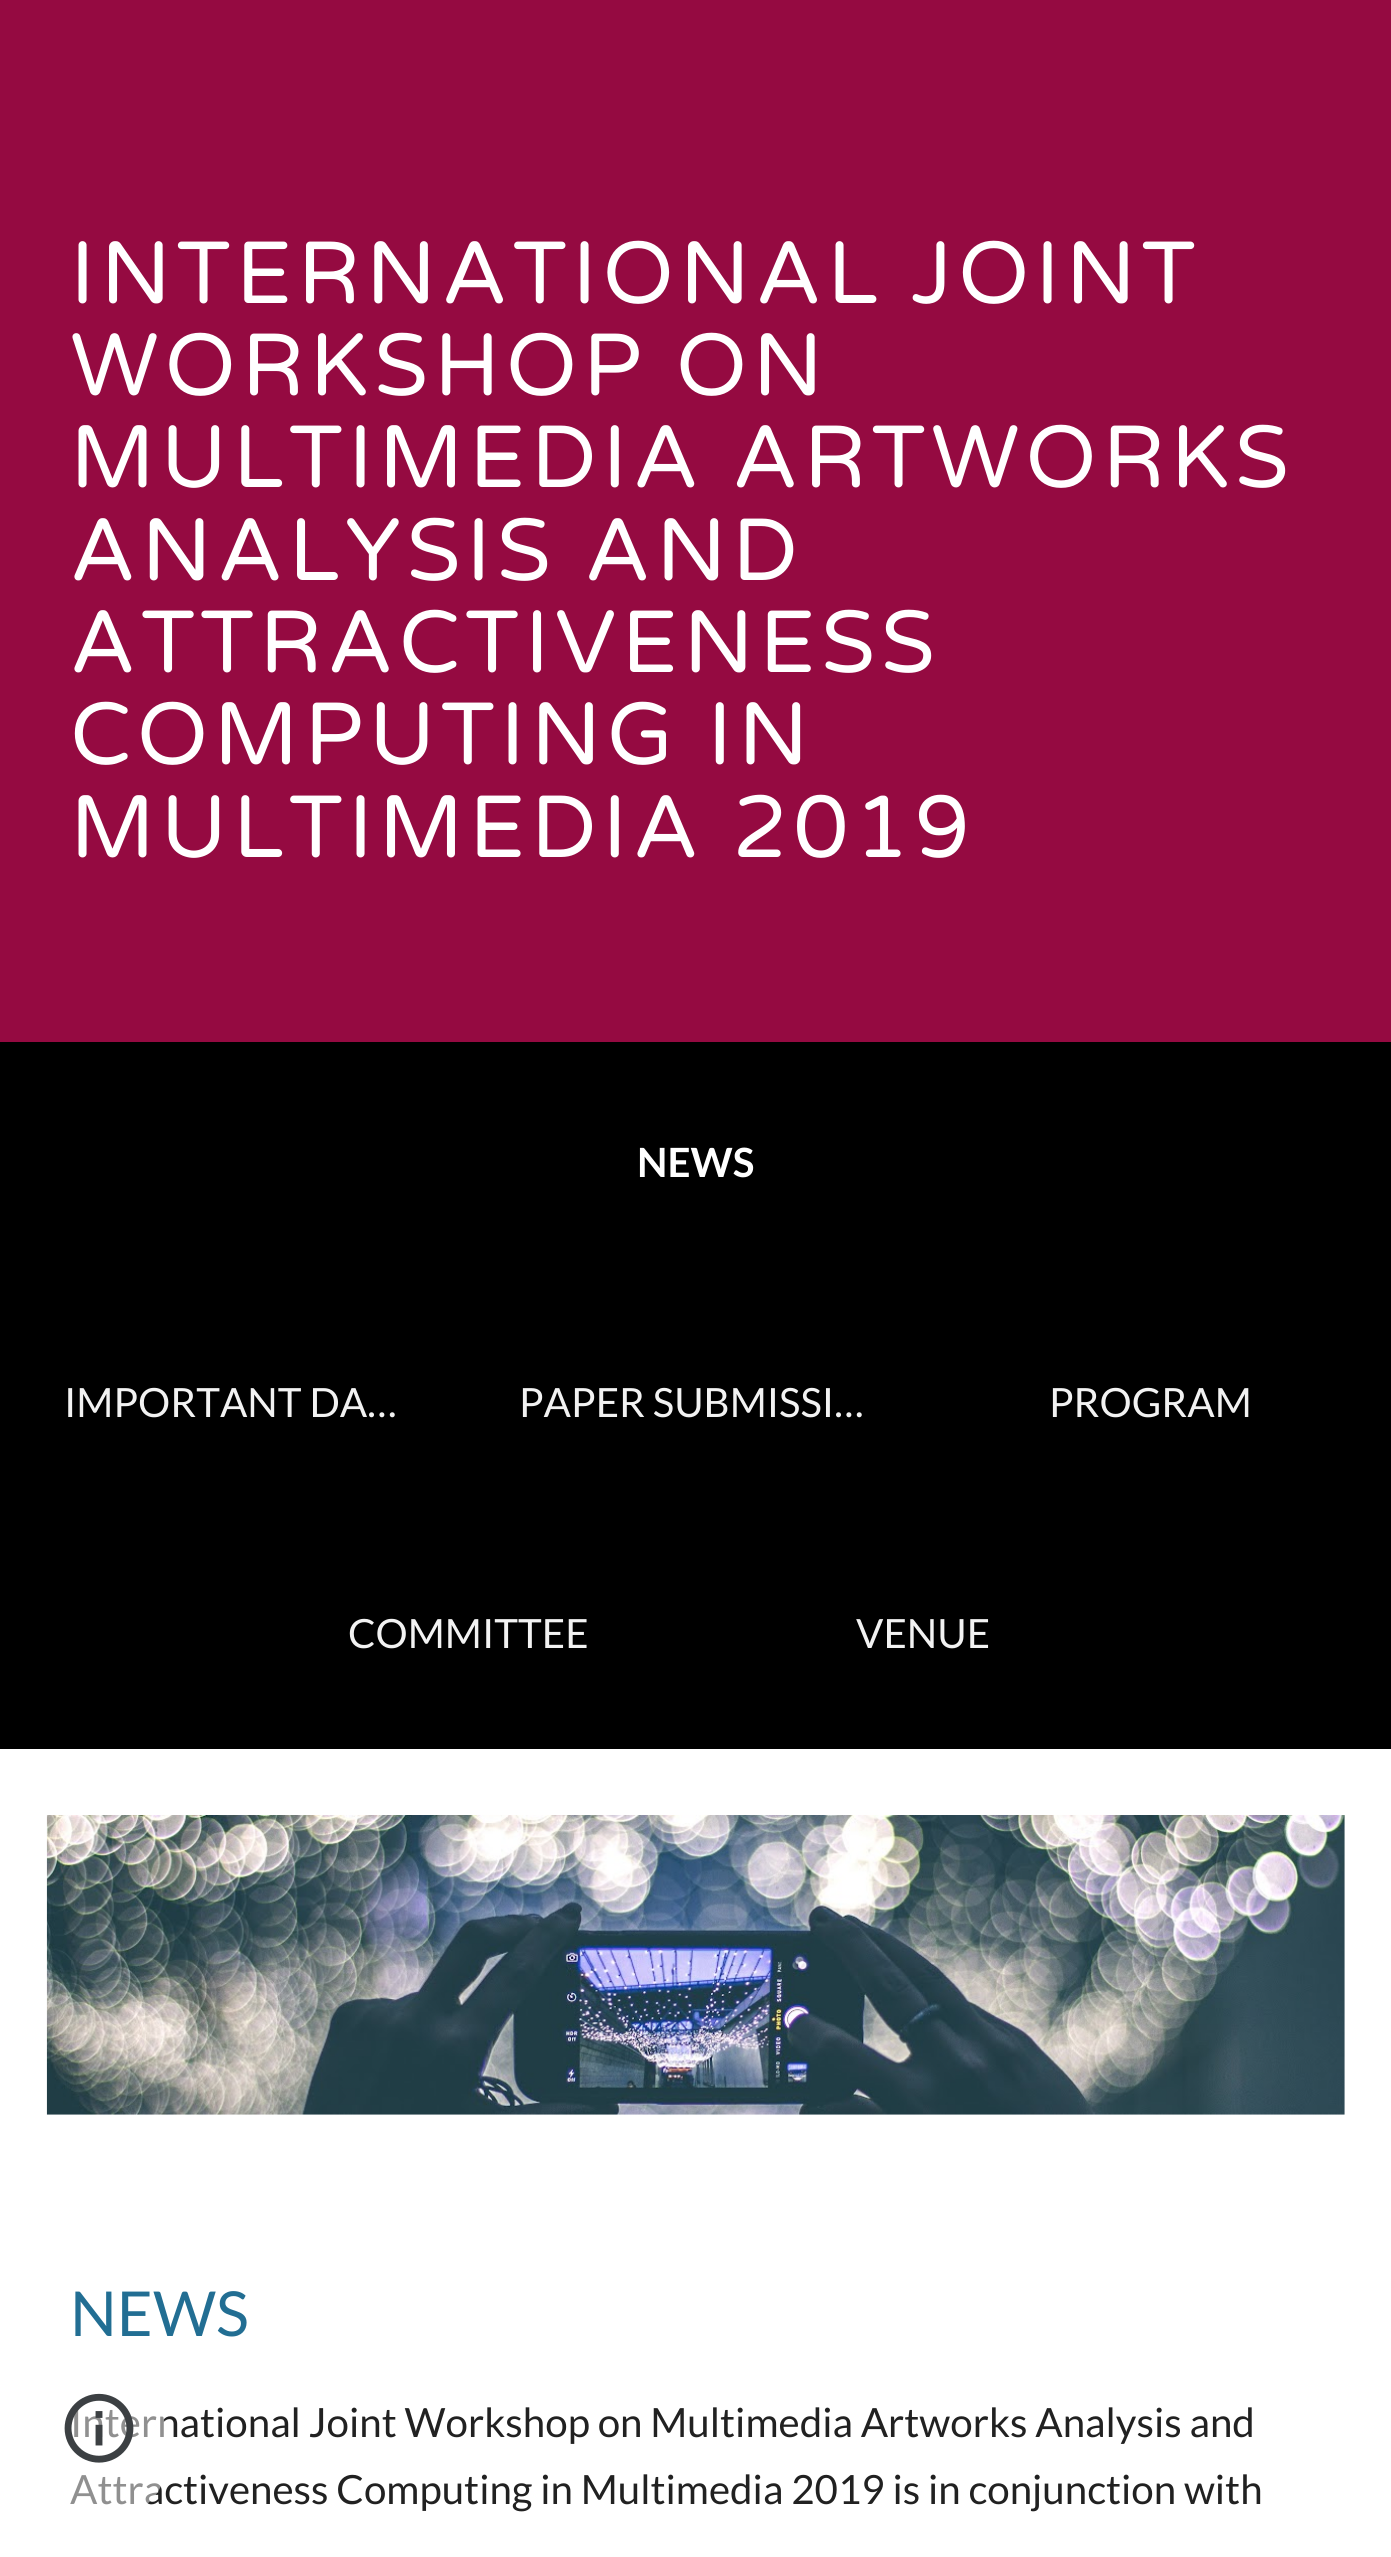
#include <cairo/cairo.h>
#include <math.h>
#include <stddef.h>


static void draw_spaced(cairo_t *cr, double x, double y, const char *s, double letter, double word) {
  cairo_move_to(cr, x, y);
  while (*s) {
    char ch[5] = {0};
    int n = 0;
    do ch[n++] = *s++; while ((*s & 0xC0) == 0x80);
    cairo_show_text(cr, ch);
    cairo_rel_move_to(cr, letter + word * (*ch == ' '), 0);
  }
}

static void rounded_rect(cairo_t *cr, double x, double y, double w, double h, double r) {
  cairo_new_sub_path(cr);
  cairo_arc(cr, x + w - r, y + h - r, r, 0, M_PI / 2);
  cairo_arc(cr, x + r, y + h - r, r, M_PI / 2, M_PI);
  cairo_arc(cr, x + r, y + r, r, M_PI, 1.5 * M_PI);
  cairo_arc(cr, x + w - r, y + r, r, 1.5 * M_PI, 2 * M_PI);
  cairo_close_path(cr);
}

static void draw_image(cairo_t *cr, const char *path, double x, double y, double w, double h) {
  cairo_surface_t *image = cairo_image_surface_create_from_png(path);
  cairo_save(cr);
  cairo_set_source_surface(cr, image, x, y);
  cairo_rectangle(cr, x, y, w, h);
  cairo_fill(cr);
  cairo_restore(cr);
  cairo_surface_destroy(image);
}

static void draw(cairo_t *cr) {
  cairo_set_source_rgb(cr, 1, 1, 1);
  cairo_paint(cr);
  cairo_set_source_rgb(cr, 149 / 255.0, 10 / 255.0, 65 / 255.0);
  cairo_rectangle(cr, 0, 0, 1391, 1042);
  cairo_fill(cr);
  cairo_set_source_rgb(cr, 0, 0, 0);
  cairo_rectangle(cr, 0, 1042, 1391, 707);
  cairo_fill(cr);
  draw_image(cr, "images/1.png", 46, 1815, 1299, 300);
  cairo_select_font_face(cr, "Varela Round", CAIRO_FONT_SLANT_NORMAL, CAIRO_FONT_WEIGHT_NORMAL);
  cairo_set_font_size(cr, 88);
  cairo_set_source_rgb(cr, 1, 1, 1);
  draw_spaced(cr, 70, 303, "INTERNATIONAL JOINT", 5.5, 0);
  draw_spaced(cr, 70, 395, "WORKSHOP ON", 5.5, 0);
  draw_spaced(cr, 70, 487, "MULTIMEDIA ARTWORKS", 5.5, 0);
  draw_spaced(cr, 70, 580, "ANALYSIS AND", 5.5, 0);
  draw_spaced(cr, 70, 672, "ATTRACTIVENESS", 5.5, 0);
  draw_spaced(cr, 70, 764, "COMPUTING IN", 5.5, 0);
  draw_spaced(cr, 70, 857, "MULTIMEDIA 2019", 5.5, 0);
  cairo_select_font_face(cr, "Lato", CAIRO_FONT_SLANT_NORMAL, CAIRO_FONT_WEIGHT_BOLD);
  cairo_set_font_size(cr, 40.3);
  cairo_move_to(cr, 637, 1177);
  cairo_show_text(cr, "NEWS");
  cairo_select_font_face(cr, "Lato", CAIRO_FONT_SLANT_NORMAL, CAIRO_FONT_WEIGHT_NORMAL);
  cairo_set_source_rgb(cr, 242 / 255.0, 242 / 255.0, 242 / 255.0);
  cairo_move_to(cr, 64, 1417);
  cairo_show_text(cr, "IMPORTANT DA…");
  cairo_move_to(cr, 519, 1417);
  cairo_show_text(cr, "PAPER SUBMISSI…");
  cairo_move_to(cr, 1049, 1417);
  cairo_show_text(cr, "PROGRAM");
  cairo_move_to(cr, 348, 1648);
  cairo_show_text(cr, "COMMITTEE");
  cairo_move_to(cr, 856, 1648);
  cairo_show_text(cr, "VENUE");
  cairo_set_font_size(cr, 62);
  cairo_set_source_rgb(cr, 34 / 255.0, 110 / 255.0, 147 / 255.0);
  cairo_move_to(cr, 70, 2336);
  cairo_show_text(cr, "NEWS");
  cairo_set_font_size(cr, 40.3);
  cairo_set_source_rgb(cr, 33 / 255.0, 33 / 255.0, 33 / 255.0);
  cairo_move_to(cr, 70, 2437);
  cairo_show_text(cr, "International Joint Workshop on Multimedia Artworks Analysis and");
  cairo_move_to(cr, 70, 2504);
  cairo_show_text(cr, "Attractiveness Computing in Multimedia 2019 is in conjunction with");
  cairo_set_source_rgba(cr, 1, 1, 1, 0.5);
  rounded_rect(cr, 33, 2382, 132, 132, 47);
  cairo_fill(cr);
  draw_image(cr, "images/2.png", 64, 2393, 70, 70);
}

int main(void) {
  cairo_surface_t *surface = cairo_image_surface_create(CAIRO_FORMAT_RGB24, 1391, 2557);
  cairo_t *cr = cairo_create(surface);
  cairo_font_options_t *options = cairo_font_options_create();
  cairo_font_options_set_hint_metrics(options, CAIRO_HINT_METRICS_OFF);
  cairo_font_options_set_hint_style(options, CAIRO_HINT_STYLE_NONE);
  cairo_set_font_options(cr, options);
  cairo_set_miter_limit(cr, 4);
  draw(cr);
  cairo_surface_write_to_png(surface, "out.png");
  cairo_font_options_destroy(options);
  cairo_destroy(cr);
  cairo_surface_destroy(surface);
  return 0;
}
